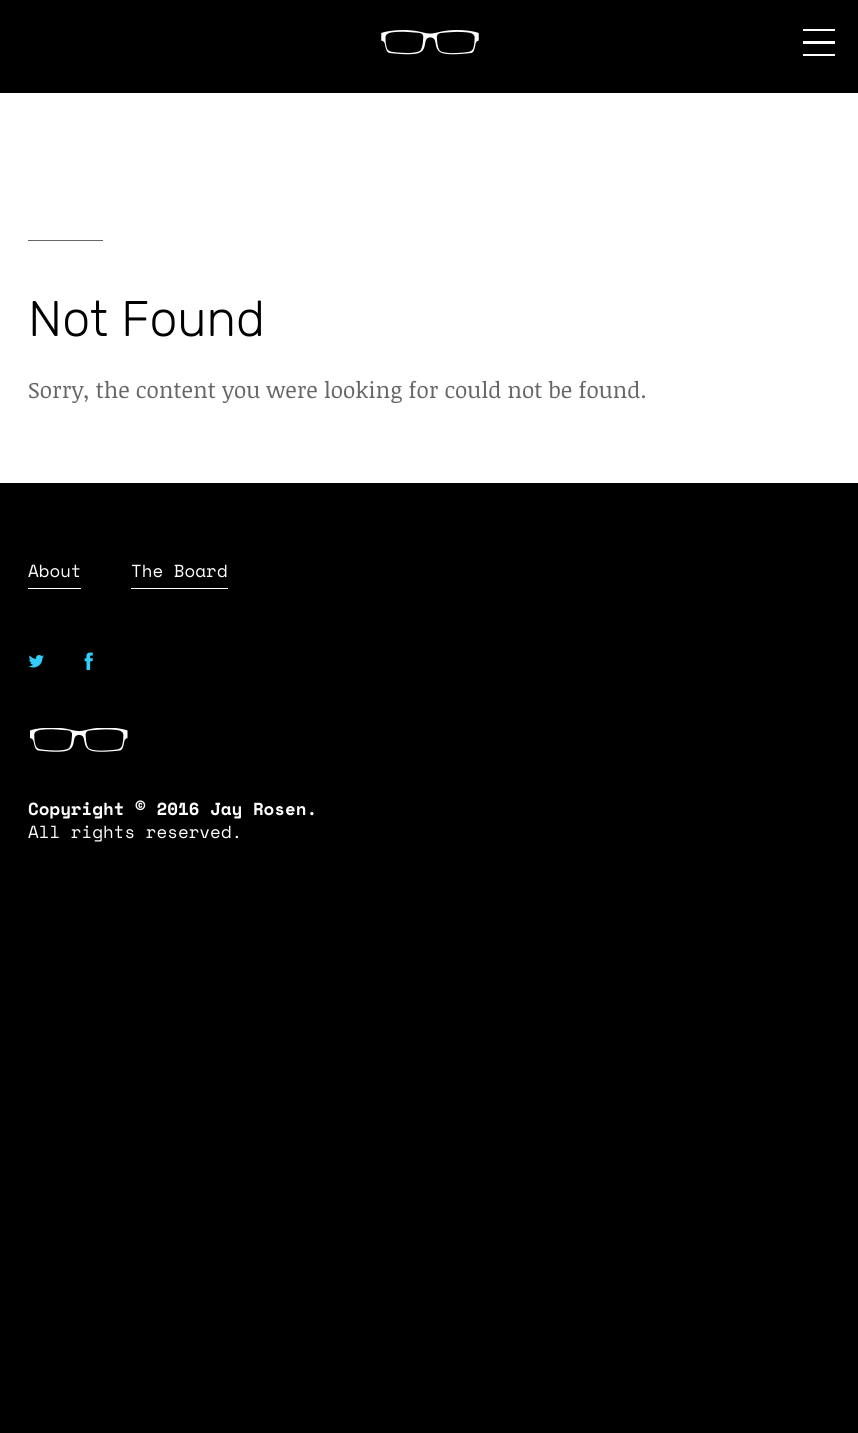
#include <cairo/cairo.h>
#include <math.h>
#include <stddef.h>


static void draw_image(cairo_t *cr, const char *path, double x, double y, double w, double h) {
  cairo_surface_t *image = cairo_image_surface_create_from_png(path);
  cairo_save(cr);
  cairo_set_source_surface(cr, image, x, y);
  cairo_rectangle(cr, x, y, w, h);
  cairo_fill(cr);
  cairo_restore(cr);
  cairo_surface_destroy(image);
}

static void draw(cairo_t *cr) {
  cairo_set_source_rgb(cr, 0, 0, 0);
  cairo_paint(cr);
  draw_image(cr, "images/1.png", 381, 30, 98, 25);
  cairo_set_source_rgb(cr, 1, 1, 1);
  cairo_rectangle(cr, 803, 29, 32, 2);
  cairo_fill(cr);
  cairo_rectangle(cr, 803, 41, 32, 3);
  cairo_fill(cr);
  cairo_rectangle(cr, 803, 54, 32, 2);
  cairo_fill(cr);
  cairo_rectangle(cr, 0, 93, 858, 390);
  cairo_fill(cr);
  cairo_set_source_rgb(cr, 102 / 255.0, 102 / 255.0, 102 / 255.0);
  cairo_rectangle(cr, 28, 240, 75, 1);
  cairo_fill(cr);
  cairo_set_source_rgb(cr, 1, 1, 1);
  cairo_rectangle(cr, 28, 588, 53, 1);
  cairo_fill(cr);
  cairo_rectangle(cr, 131, 588, 97, 1);
  cairo_fill(cr);
  draw_image(cr, "images/2.png", 28, 655, 16, 13);
  draw_image(cr, "images/3.png", 84, 652, 9, 18);
  draw_image(cr, "images/4.png", 30, 728, 98, 24);
  cairo_select_font_face(cr, "Rubik Light", CAIRO_FONT_SLANT_NORMAL, CAIRO_FONT_WEIGHT_NORMAL);
  cairo_set_font_size(cr, 50);
  cairo_set_source_rgb(cr, 0, 0, 0);
  cairo_move_to(cr, 28, 336);
  cairo_show_text(cr, "Not Found");
  cairo_select_font_face(cr, "Noticia Text", CAIRO_FONT_SLANT_NORMAL, CAIRO_FONT_WEIGHT_NORMAL);
  cairo_set_font_size(cr, 22.5);
  cairo_set_source_rgb(cr, 102 / 255.0, 102 / 255.0, 102 / 255.0);
  cairo_move_to(cr, 28, 398);
  cairo_show_text(cr, "Sorry, the content you were looking for could not be found.");
  cairo_select_font_face(cr, "Space Mono", CAIRO_FONT_SLANT_NORMAL, CAIRO_FONT_WEIGHT_NORMAL);
  cairo_set_font_size(cr, 17.5);
  cairo_set_source_rgb(cr, 1, 1, 1);
  cairo_move_to(cr, 28, 577);
  cairo_show_text(cr, "About");
  cairo_move_to(cr, 131, 577);
  cairo_show_text(cr, "The Board");
  cairo_select_font_face(cr, "Space Mono", CAIRO_FONT_SLANT_NORMAL, CAIRO_FONT_WEIGHT_BOLD);
  cairo_move_to(cr, 28, 815);
  cairo_show_text(cr, "Copyright © 2016 Jay Rosen.");
  cairo_select_font_face(cr, "Space Mono", CAIRO_FONT_SLANT_NORMAL, CAIRO_FONT_WEIGHT_NORMAL);
  cairo_move_to(cr, 28, 838);
  cairo_show_text(cr, "All rights reserved.");
}

int main(void) {
  cairo_surface_t *surface = cairo_image_surface_create(CAIRO_FORMAT_RGB24, 858, 1433);
  cairo_t *cr = cairo_create(surface);
  cairo_font_options_t *options = cairo_font_options_create();
  cairo_font_options_set_hint_metrics(options, CAIRO_HINT_METRICS_OFF);
  cairo_font_options_set_hint_style(options, CAIRO_HINT_STYLE_NONE);
  cairo_set_font_options(cr, options);
  cairo_set_miter_limit(cr, 4);
  draw(cr);
  cairo_surface_write_to_png(surface, "out.png");
  cairo_font_options_destroy(options);
  cairo_destroy(cr);
  cairo_surface_destroy(surface);
  return 0;
}
